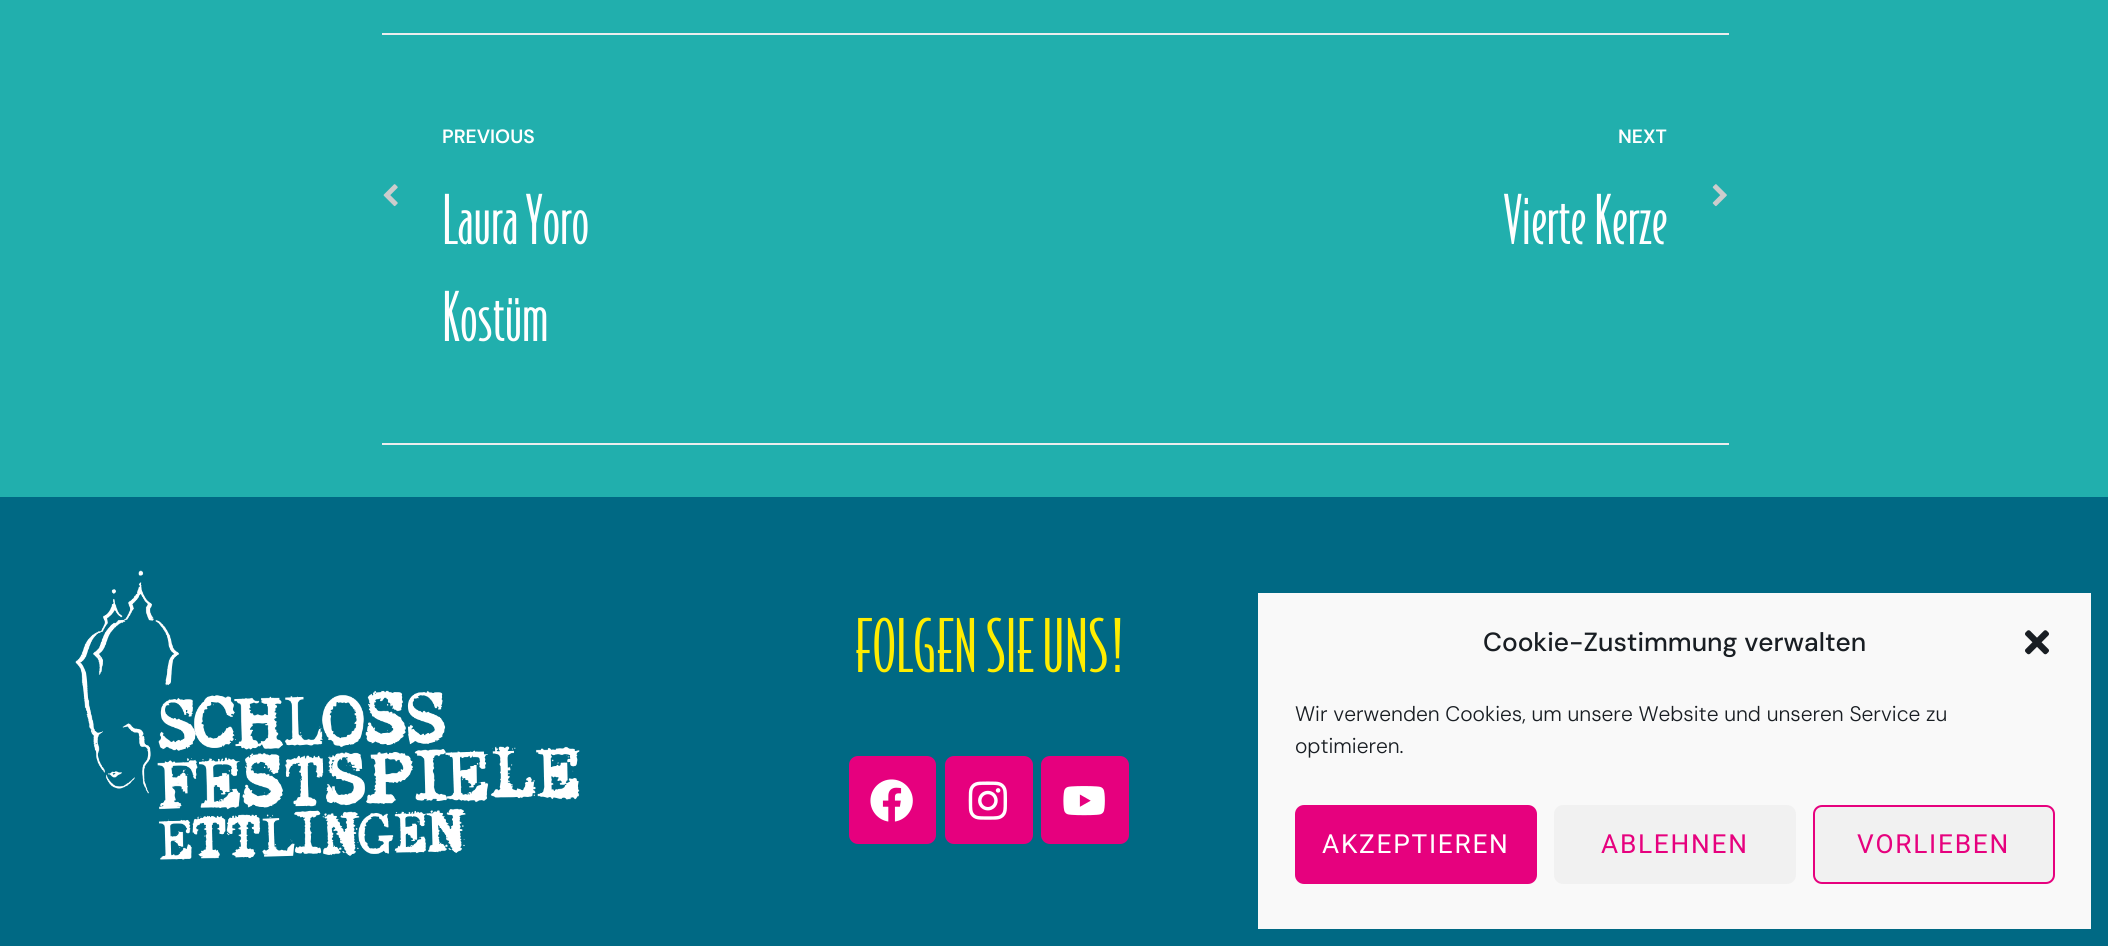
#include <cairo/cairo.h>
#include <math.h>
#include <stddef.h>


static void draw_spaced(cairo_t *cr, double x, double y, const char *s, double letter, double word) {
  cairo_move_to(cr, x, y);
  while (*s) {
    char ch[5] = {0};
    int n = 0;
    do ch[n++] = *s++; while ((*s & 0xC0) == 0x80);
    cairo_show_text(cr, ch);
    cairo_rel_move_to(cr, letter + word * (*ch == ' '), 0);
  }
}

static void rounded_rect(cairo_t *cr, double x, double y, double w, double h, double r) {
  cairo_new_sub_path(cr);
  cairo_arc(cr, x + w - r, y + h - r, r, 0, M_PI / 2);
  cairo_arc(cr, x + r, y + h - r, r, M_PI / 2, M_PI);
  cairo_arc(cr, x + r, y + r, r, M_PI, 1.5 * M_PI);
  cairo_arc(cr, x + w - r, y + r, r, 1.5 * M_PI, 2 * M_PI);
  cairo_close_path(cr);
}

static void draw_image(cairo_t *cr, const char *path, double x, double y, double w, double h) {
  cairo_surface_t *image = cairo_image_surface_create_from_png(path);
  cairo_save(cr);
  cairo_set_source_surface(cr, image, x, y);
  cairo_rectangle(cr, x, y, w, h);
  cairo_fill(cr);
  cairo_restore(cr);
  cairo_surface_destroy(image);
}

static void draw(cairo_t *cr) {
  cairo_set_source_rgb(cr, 33 / 255.0, 175 / 255.0, 173 / 255.0);
  cairo_paint(cr);
  cairo_set_source_rgb(cr, 235 / 255.0, 236 / 255.0, 237 / 255.0);
  cairo_rectangle(cr, 382, 33, 1347, 2);
  cairo_fill(cr);
  cairo_rectangle(cr, 382, 443, 1347, 2);
  cairo_fill(cr);
  draw_image(cr, "images/1.png", 383, 184, 15, 23);
  draw_image(cr, "images/2.png", 1712, 184, 15, 23);
  cairo_set_source_rgb(cr, 0, 105 / 255.0, 132 / 255.0);
  cairo_rectangle(cr, 0, 497, 2108, 449);
  cairo_fill(cr);
  draw_image(cr, "images/3.png", 75, 570, 505, 290);
  cairo_set_source_rgb(cr, 230 / 255.0, 0, 126 / 255.0);
  rounded_rect(cr, 849, 756, 87, 88, 9);
  cairo_fill(cr);
  draw_image(cr, "images/4.png", 870, 779, 43, 43);
  rounded_rect(cr, 945, 756, 88, 88, 9);
  cairo_fill(cr);
  draw_image(cr, "images/5.png", 968, 781, 40, 39);
  rounded_rect(cr, 1041, 756, 88, 88, 9);
  cairo_fill(cr);
  draw_image(cr, "images/6.png", 1063, 786, 42, 30);
  cairo_set_source_rgb(cr, 249 / 255.0, 249 / 255.0, 249 / 255.0);
  cairo_rectangle(cr, 1258, 593, 833, 336);
  cairo_fill(cr);
  draw_image(cr, "images/7.png", 2025, 630, 24, 25);
  cairo_set_source_rgb(cr, 230 / 255.0, 1 / 255.0, 126 / 255.0);
  rounded_rect(cr, 1296, 806, 240, 77, 8);
  cairo_fill_preserve(cr);
  cairo_stroke(cr);
  cairo_set_source_rgb(cr, 241 / 255.0, 241 / 255.0, 241 / 255.0);
  rounded_rect(cr, 1554, 805, 242, 79, 9);
  cairo_fill(cr);
  rounded_rect(cr, 1814, 806, 240, 77, 8);
  cairo_fill_preserve(cr);
  cairo_set_source_rgb(cr, 230 / 255.0, 1 / 255.0, 126 / 255.0);
  cairo_stroke(cr);
  cairo_select_font_face(cr, "DM Sans SemiBold", CAIRO_FONT_SLANT_NORMAL, CAIRO_FONT_WEIGHT_NORMAL);
  cairo_set_font_size(cr, 19.25);
  cairo_set_source_rgb(cr, 1, 1, 1);
  cairo_move_to(cr, 442, 143);
  cairo_show_text(cr, "PREVIOUS");
  cairo_select_font_face(cr, "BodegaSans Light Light", CAIRO_FONT_SLANT_NORMAL, CAIRO_FONT_WEIGHT_NORMAL);
  cairo_set_font_size(cr, 65);
  cairo_move_to(cr, 442, 244);
  cairo_show_text(cr, "Laura Yoro");
  cairo_move_to(cr, 442, 341);
  cairo_show_text(cr, "Kostüm");
  cairo_select_font_face(cr, "DM Sans SemiBold", CAIRO_FONT_SLANT_NORMAL, CAIRO_FONT_WEIGHT_NORMAL);
  cairo_set_font_size(cr, 19.25);
  cairo_move_to(cr, 1618, 143);
  cairo_show_text(cr, "NEXT");
  cairo_select_font_face(cr, "BodegaSans Light Light", CAIRO_FONT_SLANT_NORMAL, CAIRO_FONT_WEIGHT_NORMAL);
  cairo_set_font_size(cr, 65);
  cairo_move_to(cr, 1504, 244);
  cairo_show_text(cr, "Vierte Kerze");
  cairo_set_font_size(cr, 70);
  cairo_set_source_rgb(cr, 1, 237 / 255.0, 0);
  cairo_move_to(cr, 855, 672);
  cairo_show_text(cr, "FOLGEN SIE UNS!");
  cairo_select_font_face(cr, "DM Sans Medium", CAIRO_FONT_SLANT_NORMAL, CAIRO_FONT_WEIGHT_NORMAL);
  cairo_set_font_size(cr, 26.25);
  cairo_set_source_rgb(cr, 25 / 255.0, 30 / 255.0, 35 / 255.0);
  cairo_move_to(cr, 1483, 651);
  cairo_show_text(cr, "Cookie-Zustimmung verwalten");
  cairo_select_font_face(cr, "DM Sans Light", CAIRO_FONT_SLANT_NORMAL, CAIRO_FONT_WEIGHT_NORMAL);
  cairo_set_font_size(cr, 21);
  cairo_move_to(cr, 1295, 721);
  cairo_show_text(cr, "Wir verwenden Cookies, um unsere Website und unseren Service zu");
  cairo_move_to(cr, 1295, 753);
  cairo_show_text(cr, "optimieren.");
  cairo_select_font_face(cr, "Roboto", CAIRO_FONT_SLANT_NORMAL, CAIRO_FONT_WEIGHT_NORMAL);
  cairo_set_font_size(cr, 26.25);
  cairo_set_source_rgb(cr, 1, 1, 1);
  draw_spaced(cr, 1322, 853, "AKZEPTIEREN", 1.75, 0);
  cairo_set_source_rgb(cr, 230 / 255.0, 1 / 255.0, 126 / 255.0);
  draw_spaced(cr, 1601, 853, "ABLEHNEN", 1.75, 0);
  draw_spaced(cr, 1857, 853, "VORLIEBEN", 1.75, 0);
}

int main(void) {
  cairo_surface_t *surface = cairo_image_surface_create(CAIRO_FORMAT_RGB24, 2108, 946);
  cairo_t *cr = cairo_create(surface);
  cairo_font_options_t *options = cairo_font_options_create();
  cairo_font_options_set_hint_metrics(options, CAIRO_HINT_METRICS_OFF);
  cairo_font_options_set_hint_style(options, CAIRO_HINT_STYLE_NONE);
  cairo_set_font_options(cr, options);
  cairo_set_miter_limit(cr, 4);
  draw(cr);
  cairo_surface_write_to_png(surface, "out.png");
  cairo_font_options_destroy(options);
  cairo_destroy(cr);
  cairo_surface_destroy(surface);
  return 0;
}
